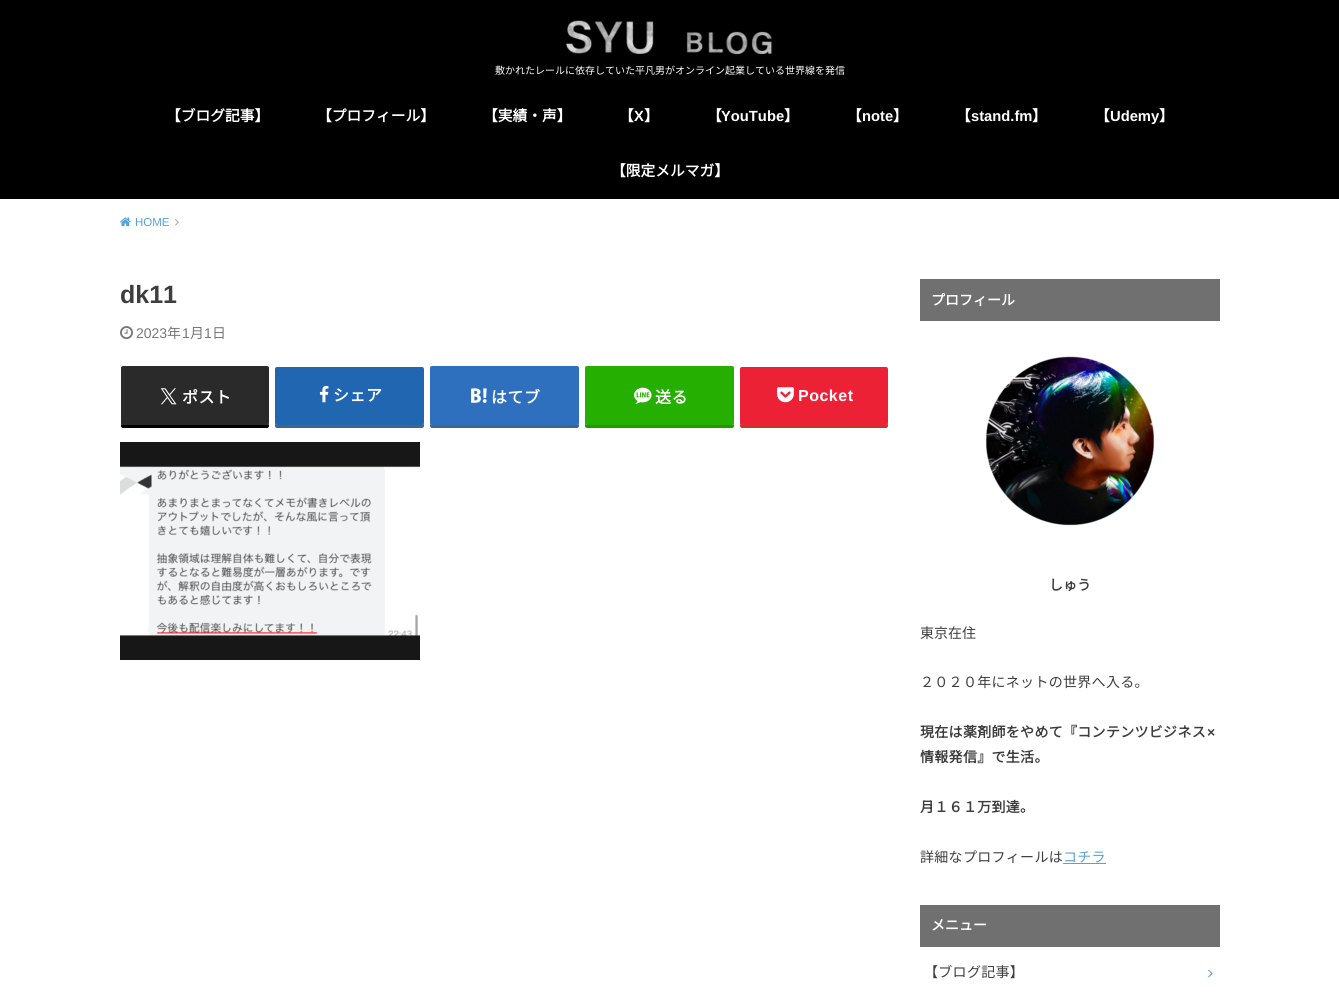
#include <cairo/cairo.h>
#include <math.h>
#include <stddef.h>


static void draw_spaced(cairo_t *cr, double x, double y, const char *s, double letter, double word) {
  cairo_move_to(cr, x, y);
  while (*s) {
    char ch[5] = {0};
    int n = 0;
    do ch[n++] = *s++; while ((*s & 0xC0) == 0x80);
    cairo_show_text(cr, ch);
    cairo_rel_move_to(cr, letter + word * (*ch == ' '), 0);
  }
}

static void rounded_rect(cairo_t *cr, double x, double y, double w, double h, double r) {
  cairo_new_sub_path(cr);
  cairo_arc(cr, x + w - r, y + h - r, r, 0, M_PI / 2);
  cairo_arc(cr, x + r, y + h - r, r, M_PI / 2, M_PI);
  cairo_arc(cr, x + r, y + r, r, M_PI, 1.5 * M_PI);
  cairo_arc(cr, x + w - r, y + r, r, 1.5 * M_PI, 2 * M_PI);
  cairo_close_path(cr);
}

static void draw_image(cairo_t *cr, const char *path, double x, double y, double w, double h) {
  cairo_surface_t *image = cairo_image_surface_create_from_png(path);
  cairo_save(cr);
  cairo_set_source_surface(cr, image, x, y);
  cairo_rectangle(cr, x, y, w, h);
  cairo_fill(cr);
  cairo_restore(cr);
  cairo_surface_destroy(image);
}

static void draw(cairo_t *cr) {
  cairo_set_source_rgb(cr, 1, 1, 1);
  cairo_paint(cr);
  cairo_set_source_rgb(cr, 0, 0, 0);
  cairo_rectangle(cr, 0, 0, 1339, 199);
  cairo_fill(cr);
  draw_image(cr, "images/1.png", 566, 20, 207, 35);
  draw_image(cr, "images/2.png", 120, 217, 11, 10);
  draw_image(cr, "images/3.png", 175, 219, 4, 7);
  draw_image(cr, "images/4.png", 120, 326, 13, 14);
  cairo_new_path(cr);
  cairo_move_to(cr, 121, 423);
  cairo_line_to(cr, 121, 426);
  cairo_curve_to(cr, 121, 427, 122, 428, 123, 428);
  cairo_line_to(cr, 267, 428);
  cairo_curve_to(cr, 268, 428, 269, 427, 269, 426);
  cairo_line_to(cr, 269, 423);
  cairo_curve_to(cr, 269, 424, 268, 425, 267, 425);
  cairo_line_to(cr, 123, 425);
  cairo_curve_to(cr, 122, 425, 121, 424, 121, 423);
  cairo_close_path(cr);
  cairo_fill(cr);
  cairo_set_source_rgb(cr, 42 / 255.0, 42 / 255.0, 42 / 255.0);
  rounded_rect(cr, 121, 366, 148, 59, 2);
  cairo_fill(cr);
  draw_image(cr, "images/5.png", 160, 388, 17, 17);
  cairo_set_source_rgb(cr, 67 / 255.0, 99 / 255.0, 139 / 255.0);
  cairo_new_path(cr);
  cairo_move_to(cr, 275, 423);
  cairo_line_to(cr, 275, 426);
  cairo_curve_to(cr, 275, 427, 276, 428, 277, 428);
  cairo_line_to(cr, 422, 428);
  cairo_curve_to(cr, 423, 428, 424, 427, 424, 426);
  cairo_line_to(cr, 424, 423);
  cairo_curve_to(cr, 424, 424, 423, 425, 422, 425);
  cairo_line_to(cr, 277, 425);
  cairo_curve_to(cr, 276, 425, 275, 424, 275, 423);
  cairo_close_path(cr);
  cairo_fill(cr);
  cairo_set_source_rgb(cr, 32 / 255.0, 102 / 255.0, 177 / 255.0);
  rounded_rect(cr, 275, 367, 149, 58, 2);
  cairo_fill(cr);
  draw_image(cr, "images/6.png", 319, 385, 10, 18);
  cairo_set_source_rgb(cr, 67 / 255.0, 99 / 255.0, 139 / 255.0);
  cairo_new_path(cr);
  cairo_move_to(cr, 430, 423);
  cairo_line_to(cr, 430, 426);
  cairo_curve_to(cr, 430, 427, 431, 428, 432, 428);
  cairo_line_to(cr, 577, 428);
  cairo_curve_to(cr, 578, 428, 579, 427, 579, 426);
  cairo_line_to(cr, 579, 423);
  cairo_curve_to(cr, 579, 424, 578, 425, 577, 425);
  cairo_line_to(cr, 432, 425);
  cairo_curve_to(cr, 431, 425, 430, 424, 430, 423);
  cairo_close_path(cr);
  cairo_fill(cr);
  cairo_set_source_rgb(cr, 47 / 255.0, 112 / 255.0, 190 / 255.0);
  rounded_rect(cr, 430, 366, 149, 59, 2);
  cairo_fill(cr);
  draw_image(cr, "images/7.png", 471, 388, 16, 15);
  cairo_set_source_rgb(cr, 33 / 255.0, 153 / 255.0, 0);
  cairo_new_path(cr);
  cairo_move_to(cr, 585, 423);
  cairo_line_to(cr, 585, 426);
  cairo_curve_to(cr, 585, 427, 586, 428, 587, 428);
  cairo_line_to(cr, 732, 428);
  cairo_curve_to(cr, 733, 428, 734, 427, 734, 426);
  cairo_line_to(cr, 734, 423);
  cairo_curve_to(cr, 734, 424, 733, 425, 732, 425);
  cairo_line_to(cr, 587, 425);
  cairo_curve_to(cr, 586, 425, 585, 424, 585, 423);
  cairo_close_path(cr);
  cairo_fill(cr);
  cairo_set_source_rgb(cr, 37 / 255.0, 175 / 255.0, 0);
  rounded_rect(cr, 585, 366, 149, 59, 2);
  cairo_fill(cr);
  draw_image(cr, "images/8.png", 634, 387, 18, 17);
  cairo_set_source_rgb(cr, 192 / 255.0, 57 / 255.0, 43 / 255.0);
  cairo_new_path(cr);
  cairo_move_to(cr, 740, 423);
  cairo_line_to(cr, 740, 426);
  cairo_curve_to(cr, 740, 427, 741, 428, 742, 428);
  cairo_line_to(cr, 886, 428);
  cairo_curve_to(cr, 887, 428, 888, 427, 888, 426);
  cairo_line_to(cr, 888, 423);
  cairo_curve_to(cr, 888, 424, 887, 425, 886, 425);
  cairo_line_to(cr, 742, 425);
  cairo_curve_to(cr, 741, 425, 740, 424, 740, 423);
  cairo_close_path(cr);
  cairo_fill(cr);
  cairo_set_source_rgb(cr, 236 / 255.0, 33 / 255.0, 54 / 255.0);
  rounded_rect(cr, 740, 367, 148, 58, 2);
  cairo_fill(cr);
  draw_image(cr, "images/9.png", 777, 387, 17, 16);
  draw_image(cr, "images/10.png", 120, 442, 300, 218);
  cairo_set_source_rgb(cr, 112 / 255.0, 112 / 255.0, 112 / 255.0);
  cairo_rectangle(cr, 920, 279, 300, 42);
  cairo_fill(cr);
  draw_image(cr, "images/11.png", 985, 356, 170, 170);
  cairo_set_source_rgb(cr, 87 / 255.0, 161 / 255.0, 216 / 255.0);
  cairo_rectangle(cr, 1063, 863, 43, 1);
  cairo_fill(cr);
  cairo_set_source_rgb(cr, 112 / 255.0, 112 / 255.0, 112 / 255.0);
  cairo_rectangle(cr, 920, 905, 300, 42);
  cairo_fill(cr);
  draw_image(cr, "images/12.png", 1208, 969, 5, 9);
  cairo_select_font_face(cr, "Noto Sans JP Thin", CAIRO_FONT_SLANT_NORMAL, CAIRO_FONT_WEIGHT_NORMAL);
  cairo_set_font_size(cr, 10);
  cairo_set_source_rgb(cr, 1, 1, 1);
  cairo_move_to(cr, 495, 74);
  cairo_show_text(cr, "敷かれたレールに依存していた平凡男がオンライン起業している世界線を発信");
  cairo_select_font_face(cr, "Noto Sans JP", CAIRO_FONT_SLANT_NORMAL, CAIRO_FONT_WEIGHT_BOLD);
  cairo_set_font_size(cr, 14.75);
  cairo_move_to(cr, 166, 121);
  cairo_show_text(cr, "【ブログ記事】");
  cairo_move_to(cr, 317, 121);
  cairo_show_text(cr, "【プロフィール】");
  cairo_move_to(cr, 483, 121);
  cairo_show_text(cr, "【実績・声】");
  cairo_move_to(cr, 619, 121);
  cairo_show_text(cr, "【");
  cairo_select_font_face(cr, "Liberation Sans", CAIRO_FONT_SLANT_NORMAL, CAIRO_FONT_WEIGHT_BOLD);
  cairo_move_to(cr, 634, 121);
  cairo_show_text(cr, "X");
  cairo_select_font_face(cr, "Noto Sans JP", CAIRO_FONT_SLANT_NORMAL, CAIRO_FONT_WEIGHT_BOLD);
  cairo_move_to(cr, 644, 121);
  cairo_show_text(cr, "】");
  cairo_move_to(cr, 707, 121);
  cairo_show_text(cr, "【");
  cairo_select_font_face(cr, "Liberation Sans", CAIRO_FONT_SLANT_NORMAL, CAIRO_FONT_WEIGHT_BOLD);
  cairo_move_to(cr, 721, 121);
  cairo_show_text(cr, "YouTube");
  cairo_select_font_face(cr, "Noto Sans JP", CAIRO_FONT_SLANT_NORMAL, CAIRO_FONT_WEIGHT_BOLD);
  cairo_move_to(cr, 784, 121);
  cairo_show_text(cr, "】");
  cairo_move_to(cr, 847, 121);
  cairo_show_text(cr, "【");
  cairo_select_font_face(cr, "Liberation Sans", CAIRO_FONT_SLANT_NORMAL, CAIRO_FONT_WEIGHT_BOLD);
  cairo_move_to(cr, 862, 121);
  cairo_show_text(cr, "note");
  cairo_select_font_face(cr, "Noto Sans JP", CAIRO_FONT_SLANT_NORMAL, CAIRO_FONT_WEIGHT_BOLD);
  cairo_move_to(cr, 893, 121);
  cairo_show_text(cr, "】");
  cairo_move_to(cr, 956, 121);
  cairo_show_text(cr, "【");
  cairo_select_font_face(cr, "Liberation Sans", CAIRO_FONT_SLANT_NORMAL, CAIRO_FONT_WEIGHT_BOLD);
  cairo_move_to(cr, 971, 121);
  cairo_show_text(cr, "stand.fm");
  cairo_select_font_face(cr, "Noto Sans JP", CAIRO_FONT_SLANT_NORMAL, CAIRO_FONT_WEIGHT_BOLD);
  cairo_move_to(cr, 1032, 121);
  cairo_show_text(cr, "】");
  cairo_move_to(cr, 1095, 121);
  cairo_show_text(cr, "【");
  cairo_select_font_face(cr, "Liberation Sans", CAIRO_FONT_SLANT_NORMAL, CAIRO_FONT_WEIGHT_BOLD);
  cairo_move_to(cr, 1110, 121);
  cairo_show_text(cr, "Udemy");
  cairo_select_font_face(cr, "Noto Sans JP", CAIRO_FONT_SLANT_NORMAL, CAIRO_FONT_WEIGHT_BOLD);
  cairo_move_to(cr, 1159, 121);
  cairo_show_text(cr, "】");
  cairo_move_to(cr, 611, 176);
  cairo_show_text(cr, "【限定メルマガ】");
  cairo_select_font_face(cr, "Liberation Sans", CAIRO_FONT_SLANT_NORMAL, CAIRO_FONT_WEIGHT_NORMAL);
  cairo_set_font_size(cr, 11.5);
  cairo_set_source_rgb(cr, 87 / 255.0, 161 / 255.0, 216 / 255.0);
  cairo_move_to(cr, 135, 226);
  cairo_show_text(cr, "HOME");
  cairo_select_font_face(cr, "Liberation Sans", CAIRO_FONT_SLANT_NORMAL, CAIRO_FONT_WEIGHT_BOLD);
  cairo_set_font_size(cr, 25);
  cairo_set_source_rgb(cr, 62 / 255.0, 62 / 255.0, 62 / 255.0);
  cairo_move_to(cr, 120, 303);
  cairo_show_text(cr, "dk11");
  cairo_select_font_face(cr, "Liberation Sans", CAIRO_FONT_SLANT_NORMAL, CAIRO_FONT_WEIGHT_NORMAL);
  cairo_set_font_size(cr, 14);
  cairo_set_source_rgb(cr, 120 / 255.0, 120 / 255.0, 120 / 255.0);
  cairo_move_to(cr, 136, 338);
  cairo_show_text(cr, "2023");
  cairo_select_font_face(cr, "Noto Sans JP Thin", CAIRO_FONT_SLANT_NORMAL, CAIRO_FONT_WEIGHT_NORMAL);
  cairo_move_to(cr, 167, 338);
  cairo_show_text(cr, "年");
  cairo_select_font_face(cr, "Liberation Sans", CAIRO_FONT_SLANT_NORMAL, CAIRO_FONT_WEIGHT_NORMAL);
  cairo_move_to(cr, 182, 338);
  cairo_show_text(cr, "1");
  cairo_select_font_face(cr, "Noto Sans JP Thin", CAIRO_FONT_SLANT_NORMAL, CAIRO_FONT_WEIGHT_NORMAL);
  cairo_move_to(cr, 190, 338);
  cairo_show_text(cr, "月");
  cairo_select_font_face(cr, "Liberation Sans", CAIRO_FONT_SLANT_NORMAL, CAIRO_FONT_WEIGHT_NORMAL);
  cairo_move_to(cr, 204, 338);
  cairo_show_text(cr, "1");
  cairo_select_font_face(cr, "Noto Sans JP Thin", CAIRO_FONT_SLANT_NORMAL, CAIRO_FONT_WEIGHT_NORMAL);
  cairo_move_to(cr, 212, 338);
  cairo_show_text(cr, "日");
  cairo_select_font_face(cr, "Noto Sans JP", CAIRO_FONT_SLANT_NORMAL, CAIRO_FONT_WEIGHT_BOLD);
  cairo_set_font_size(cr, 16);
  cairo_set_source_rgb(cr, 1, 1, 1);
  draw_spaced(cr, 182, 403, "ポスト", 0.5, 0);
  draw_spaced(cr, 333, 401, "シェア", 0.5, 0);
  draw_spaced(cr, 491, 403, "はてブ", 0.5, 0);
  draw_spaced(cr, 655, 403, "送る", 0.5, 0);
  cairo_select_font_face(cr, "Liberation Sans", CAIRO_FONT_SLANT_NORMAL, CAIRO_FONT_WEIGHT_BOLD);
  draw_spaced(cr, 798, 401, "Pocket", 0.5, 0);
  cairo_select_font_face(cr, "Noto Sans JP", CAIRO_FONT_SLANT_NORMAL, CAIRO_FONT_WEIGHT_BOLD);
  cairo_set_font_size(cr, 14);
  cairo_move_to(cr, 931, 305);
  cairo_show_text(cr, "プロフィール");
  cairo_set_source_rgb(cr, 62 / 255.0, 62 / 255.0, 62 / 255.0);
  cairo_move_to(cr, 1049, 590);
  cairo_show_text(cr, "しゅう");
  cairo_select_font_face(cr, "Noto Sans JP Thin", CAIRO_FONT_SLANT_NORMAL, CAIRO_FONT_WEIGHT_NORMAL);
  cairo_move_to(cr, 920, 638);
  cairo_show_text(cr, "東京在住");
  draw_spaced(cr, 920, 687, "２０２０年にネットの世界へ入る。", 0.3, 0);
  cairo_select_font_face(cr, "Noto Sans JP", CAIRO_FONT_SLANT_NORMAL, CAIRO_FONT_WEIGHT_BOLD);
  draw_spaced(cr, 920, 737, "現在は薬剤師をやめて『コンテンツビジネス", 0.3, 0);
  cairo_select_font_face(cr, "Liberation Sans", CAIRO_FONT_SLANT_NORMAL, CAIRO_FONT_WEIGHT_BOLD);
  draw_spaced(cr, 1207, 737, "×", 0.3, 0);
  cairo_select_font_face(cr, "Noto Sans JP", CAIRO_FONT_SLANT_NORMAL, CAIRO_FONT_WEIGHT_BOLD);
  draw_spaced(cr, 920, 762, "情報発信』で生活。", 0.3, 0);
  draw_spaced(cr, 920, 812, "月１６１万到達。", 0.3, 0);
  cairo_select_font_face(cr, "Noto Sans JP Thin", CAIRO_FONT_SLANT_NORMAL, CAIRO_FONT_WEIGHT_NORMAL);
  draw_spaced(cr, 920, 862, "詳細なプロフィールは", 0.3, 0);
  cairo_set_source_rgb(cr, 87 / 255.0, 161 / 255.0, 216 / 255.0);
  draw_spaced(cr, 1063, 862, "コチラ", 0.3, 0);
  cairo_select_font_face(cr, "Noto Sans JP", CAIRO_FONT_SLANT_NORMAL, CAIRO_FONT_WEIGHT_BOLD);
  cairo_set_source_rgb(cr, 1, 1, 1);
  cairo_move_to(cr, 931, 930);
  cairo_show_text(cr, "メニュー");
  cairo_select_font_face(cr, "Noto Sans JP Thin", CAIRO_FONT_SLANT_NORMAL, CAIRO_FONT_WEIGHT_NORMAL);
  cairo_set_source_rgb(cr, 62 / 255.0, 62 / 255.0, 62 / 255.0);
  draw_spaced(cr, 924, 977, "【ブログ記事】", 0.3, 0);
}

int main(void) {
  cairo_surface_t *surface = cairo_image_surface_create(CAIRO_FORMAT_RGB24, 1339, 996);
  cairo_t *cr = cairo_create(surface);
  cairo_font_options_t *options = cairo_font_options_create();
  cairo_font_options_set_hint_metrics(options, CAIRO_HINT_METRICS_OFF);
  cairo_font_options_set_hint_style(options, CAIRO_HINT_STYLE_NONE);
  cairo_set_font_options(cr, options);
  cairo_set_miter_limit(cr, 4);
  draw(cr);
  cairo_surface_write_to_png(surface, "out.png");
  cairo_font_options_destroy(options);
  cairo_destroy(cr);
  cairo_surface_destroy(surface);
  return 0;
}
